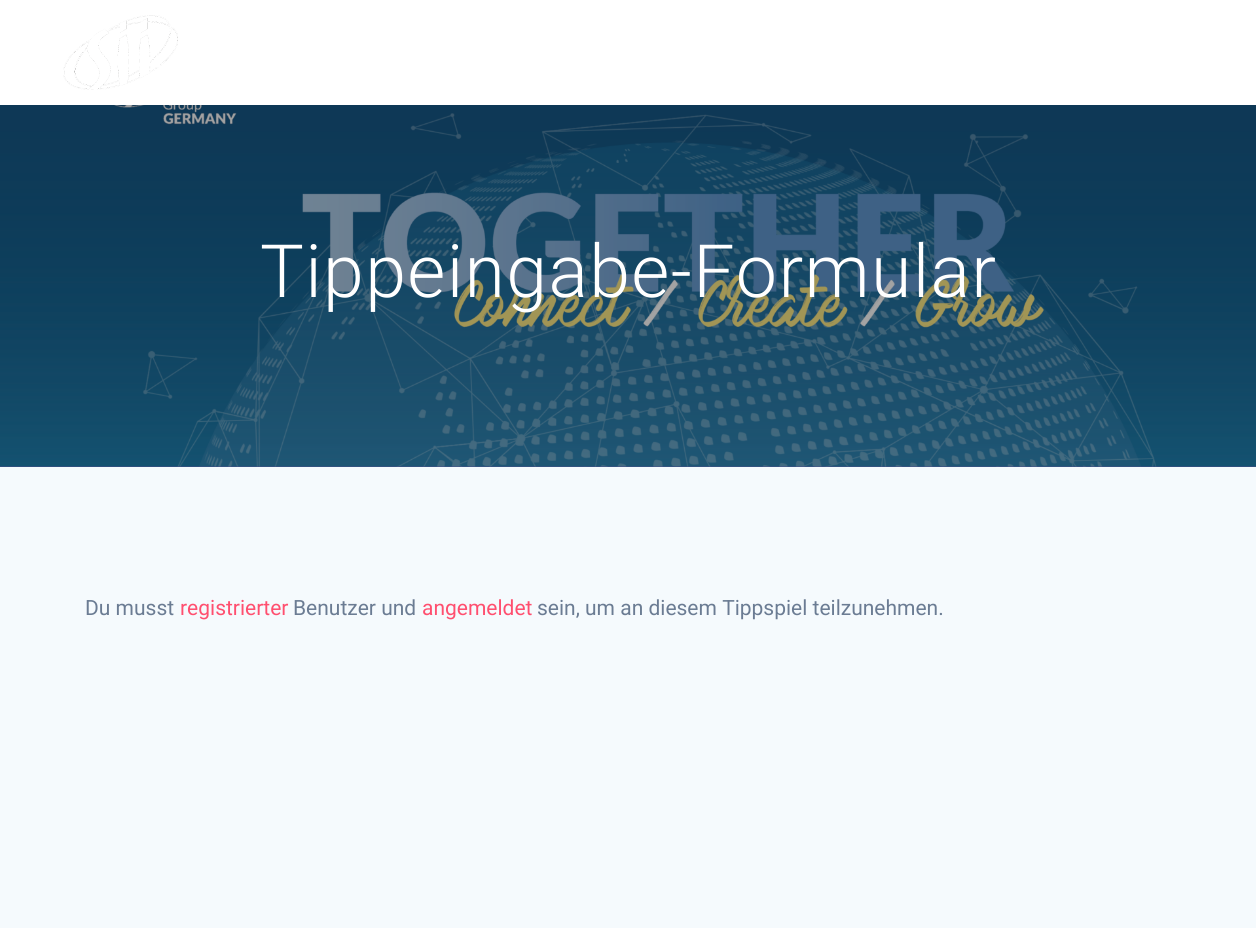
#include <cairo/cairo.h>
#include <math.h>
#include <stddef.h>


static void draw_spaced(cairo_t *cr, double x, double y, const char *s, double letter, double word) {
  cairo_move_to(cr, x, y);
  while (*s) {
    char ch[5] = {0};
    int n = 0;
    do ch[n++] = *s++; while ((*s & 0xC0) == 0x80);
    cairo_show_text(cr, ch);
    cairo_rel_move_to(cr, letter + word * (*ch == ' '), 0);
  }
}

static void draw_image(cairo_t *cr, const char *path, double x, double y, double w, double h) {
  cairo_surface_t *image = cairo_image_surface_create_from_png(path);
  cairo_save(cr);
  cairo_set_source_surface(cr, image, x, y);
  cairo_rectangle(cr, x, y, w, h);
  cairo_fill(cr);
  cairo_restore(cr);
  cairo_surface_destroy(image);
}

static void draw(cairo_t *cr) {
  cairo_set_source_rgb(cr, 73 / 255.0, 79 / 255.0, 140 / 255.0);
  cairo_paint(cr);
  cairo_set_source_rgb(cr, 1, 1, 1);
  cairo_rectangle(cr, 0, 0, 1256, 105);
  cairo_fill(cr);
  draw_image(cr, "images/1.png", 63, 15, 115, 75);
  draw_image(cr, "images/2.png", 0, 105, 1256, 362);
  cairo_set_source_rgb(cr, 245 / 255.0, 250 / 255.0, 253 / 255.0);
  cairo_rectangle(cr, 0, 467, 1256, 461);
  cairo_fill(cr);
  cairo_select_font_face(cr, "Roboto Light", CAIRO_FONT_SLANT_NORMAL, CAIRO_FONT_WEIGHT_NORMAL);
  cairo_set_font_size(cr, 73.5);
  cairo_set_source_rgb(cr, 1, 1, 1);
  draw_spaced(cr, 260, 297, "Tippeingabe-Formular", 1.35, 0);
  cairo_select_font_face(cr, "Roboto", CAIRO_FONT_SLANT_NORMAL, CAIRO_FONT_WEIGHT_NORMAL);
  cairo_set_font_size(cr, 21);
  cairo_set_source_rgb(cr, 107 / 255.0, 124 / 255.0, 147 / 255.0);
  cairo_move_to(cr, 85, 615);
  cairo_show_text(cr, "Du musst");
  cairo_set_source_rgb(cr, 1, 79 / 255.0, 111 / 255.0);
  cairo_move_to(cr, 180, 615);
  cairo_show_text(cr, "registrierter");
  cairo_set_source_rgb(cr, 107 / 255.0, 124 / 255.0, 147 / 255.0);
  cairo_move_to(cr, 293, 615);
  cairo_show_text(cr, "Benutzer und");
  cairo_set_source_rgb(cr, 1, 79 / 255.0, 111 / 255.0);
  cairo_move_to(cr, 422, 615);
  cairo_show_text(cr, "angemeldet");
  cairo_set_source_rgb(cr, 107 / 255.0, 124 / 255.0, 147 / 255.0);
  cairo_move_to(cr, 537, 615);
  cairo_show_text(cr, "sein, um an diesem Tippspiel teilzunehmen.");
}

int main(void) {
  cairo_surface_t *surface = cairo_image_surface_create(CAIRO_FORMAT_RGB24, 1256, 928);
  cairo_t *cr = cairo_create(surface);
  cairo_font_options_t *options = cairo_font_options_create();
  cairo_font_options_set_hint_metrics(options, CAIRO_HINT_METRICS_OFF);
  cairo_font_options_set_hint_style(options, CAIRO_HINT_STYLE_NONE);
  cairo_set_font_options(cr, options);
  cairo_set_miter_limit(cr, 4);
  draw(cr);
  cairo_surface_write_to_png(surface, "out.png");
  cairo_font_options_destroy(options);
  cairo_destroy(cr);
  cairo_surface_destroy(surface);
  return 0;
}
